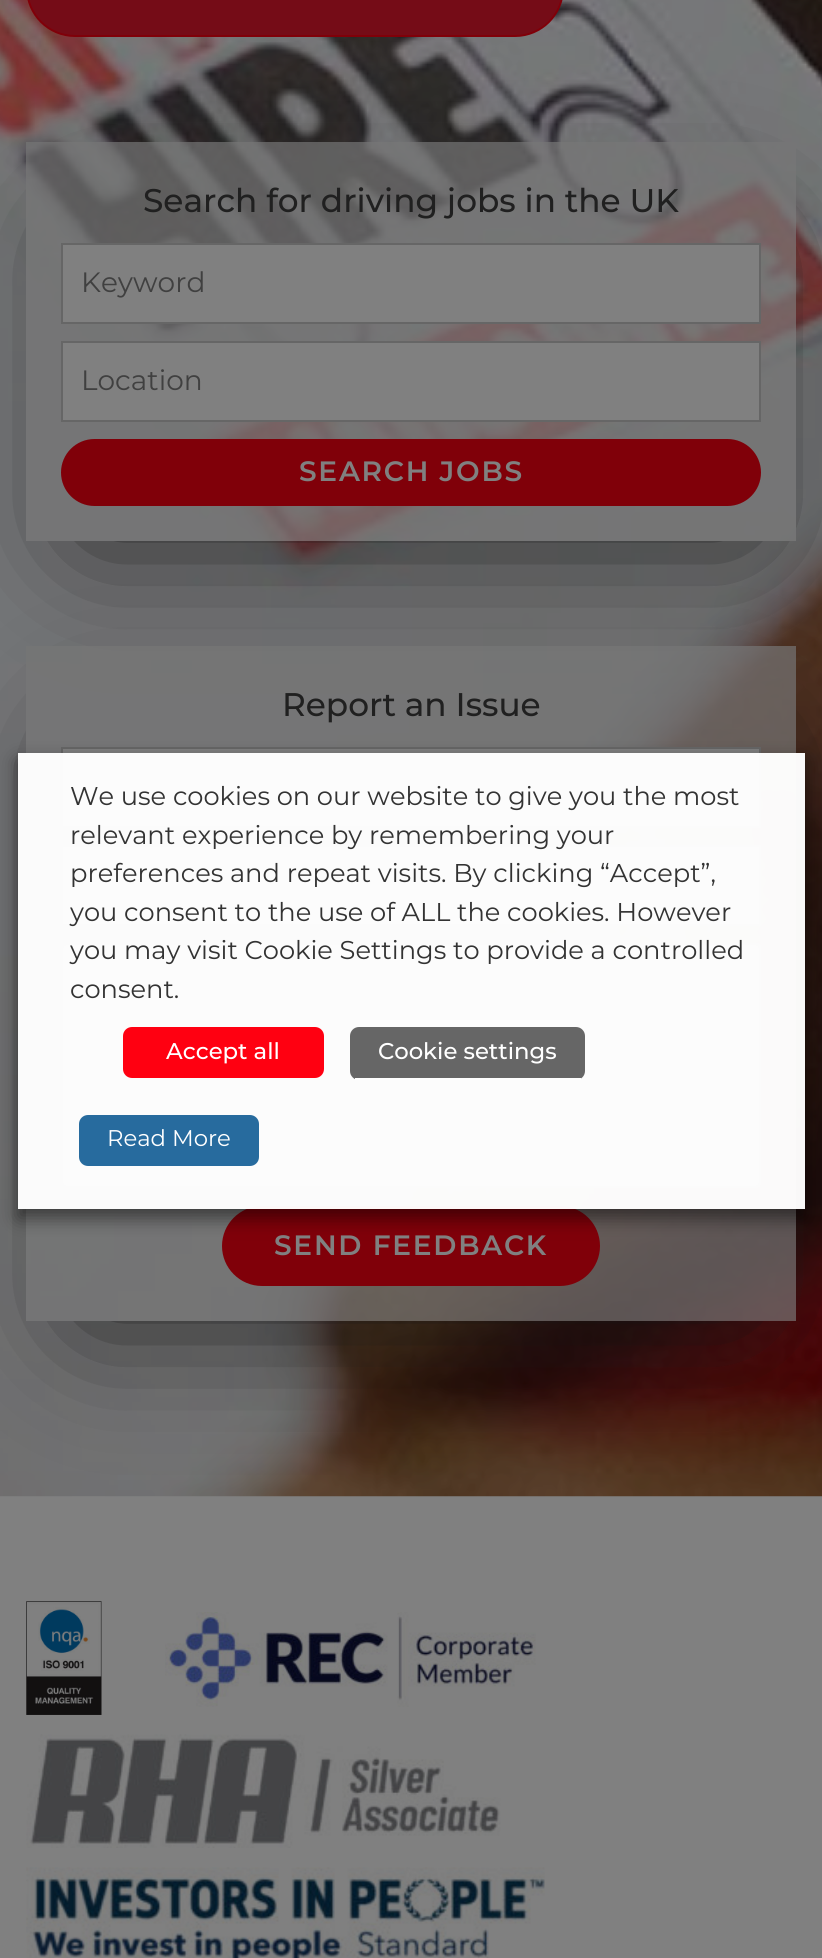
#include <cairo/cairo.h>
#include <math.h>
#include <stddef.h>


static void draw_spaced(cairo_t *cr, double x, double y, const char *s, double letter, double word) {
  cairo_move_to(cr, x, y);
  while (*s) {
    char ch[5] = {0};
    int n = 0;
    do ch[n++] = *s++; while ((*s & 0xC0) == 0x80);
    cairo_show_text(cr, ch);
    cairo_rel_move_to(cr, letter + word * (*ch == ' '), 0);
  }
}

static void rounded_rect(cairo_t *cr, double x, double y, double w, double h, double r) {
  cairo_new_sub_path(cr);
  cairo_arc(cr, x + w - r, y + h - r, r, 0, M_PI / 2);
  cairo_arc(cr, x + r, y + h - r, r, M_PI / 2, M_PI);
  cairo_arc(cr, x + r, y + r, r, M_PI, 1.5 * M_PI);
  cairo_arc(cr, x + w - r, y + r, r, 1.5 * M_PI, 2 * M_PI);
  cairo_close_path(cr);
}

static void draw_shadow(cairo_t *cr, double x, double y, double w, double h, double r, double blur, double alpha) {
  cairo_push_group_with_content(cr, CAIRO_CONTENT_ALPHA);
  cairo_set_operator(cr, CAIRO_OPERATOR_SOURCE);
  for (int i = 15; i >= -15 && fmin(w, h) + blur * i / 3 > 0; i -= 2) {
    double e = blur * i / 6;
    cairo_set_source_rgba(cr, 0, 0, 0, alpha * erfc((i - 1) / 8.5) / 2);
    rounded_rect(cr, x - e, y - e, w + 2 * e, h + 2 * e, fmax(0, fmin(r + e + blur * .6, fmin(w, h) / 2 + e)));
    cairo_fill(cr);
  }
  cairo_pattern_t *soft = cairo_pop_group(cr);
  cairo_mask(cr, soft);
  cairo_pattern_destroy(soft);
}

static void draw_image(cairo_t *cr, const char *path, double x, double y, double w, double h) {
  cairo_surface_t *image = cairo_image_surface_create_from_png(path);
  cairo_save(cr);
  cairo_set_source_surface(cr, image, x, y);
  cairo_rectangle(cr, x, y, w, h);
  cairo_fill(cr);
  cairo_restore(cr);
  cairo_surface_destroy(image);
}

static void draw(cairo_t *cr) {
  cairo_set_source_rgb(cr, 128 / 255.0, 128 / 255.0, 128 / 255.0);
  cairo_paint(cr);
  draw_image(cr, "images/1.png", 0, 0, 822, 1497);
  cairo_set_source_rgb(cr, 117 / 255.0, 12 / 255.0, 23 / 255.0);
  rounded_rect(cr, 27, -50, 536, 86, 48);
  cairo_fill_preserve(cr);
  cairo_set_source_rgb(cr, 128 / 255.0, 0, 9 / 255.0);
  cairo_stroke(cr);
  cairo_save(cr);
  cairo_set_fill_rule(cr, CAIRO_FILL_RULE_EVEN_ODD);
  cairo_new_path(cr);
  cairo_move_to(cr, 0, 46);
  cairo_line_to(cr, 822, 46);
  cairo_line_to(cr, 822, 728);
  cairo_line_to(cr, 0, 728);
  cairo_close_path(cr);
  cairo_move_to(cr, 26, 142);
  cairo_line_to(cr, 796, 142);
  cairo_line_to(cr, 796, 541);
  cairo_line_to(cr, 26, 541);
  cairo_close_path(cr);
  cairo_clip(cr);
  cairo_set_source_rgb(cr, 22 / 255.0, 22 / 255.0, 22 / 255.0);
  draw_shadow(cr, 88, 242, 661, 290, 0, 65, 1);
  cairo_restore(cr);
  cairo_set_source_rgba(cr, 117 / 255.0, 117 / 255.0, 117 / 255.0, 0.7);
  cairo_rectangle(cr, 26, 142, 770, 399);
  cairo_fill(cr);
  cairo_set_source_rgb(cr, 128 / 255.0, 128 / 255.0, 128 / 255.0);
  cairo_rectangle(cr, 62, 244, 698, 79);
  cairo_fill_preserve(cr);
  cairo_set_source_rgb(cr, 102 / 255.0, 102 / 255.0, 102 / 255.0);
  cairo_stroke(cr);
  cairo_set_source_rgb(cr, 128 / 255.0, 128 / 255.0, 128 / 255.0);
  cairo_rectangle(cr, 62, 342, 698, 79);
  cairo_fill_preserve(cr);
  cairo_set_source_rgb(cr, 102 / 255.0, 102 / 255.0, 102 / 255.0);
  cairo_stroke(cr);
  cairo_set_source_rgb(cr, 128 / 255.0, 0, 9 / 255.0);
  rounded_rect(cr, 62, 440, 698, 65, 32.5);
  cairo_fill_preserve(cr);
  cairo_stroke(cr);
  cairo_save(cr);
  cairo_set_fill_rule(cr, CAIRO_FILL_RULE_EVEN_ODD);
  cairo_new_path(cr);
  cairo_move_to(cr, 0, 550);
  cairo_line_to(cr, 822, 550);
  cairo_line_to(cr, 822, 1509);
  cairo_line_to(cr, 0, 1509);
  cairo_close_path(cr);
  cairo_move_to(cr, 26, 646);
  cairo_line_to(cr, 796, 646);
  cairo_line_to(cr, 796, 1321);
  cairo_line_to(cr, 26, 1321);
  cairo_close_path(cr);
  cairo_clip(cr);
  cairo_set_source_rgb(cr, 22 / 255.0, 22 / 255.0, 22 / 255.0);
  draw_shadow(cr, 88, 746, 661, 567, 0, 65, 1);
  cairo_restore(cr);
  cairo_set_source_rgba(cr, 117 / 255.0, 117 / 255.0, 117 / 255.0, 0.7);
  cairo_rectangle(cr, 26, 646, 770, 675);
  cairo_fill(cr);
  cairo_set_source_rgb(cr, 128 / 255.0, 128 / 255.0, 128 / 255.0);
  cairo_rectangle(cr, 62, 748, 698, 79);
  cairo_fill_preserve(cr);
  cairo_set_source_rgb(cr, 102 / 255.0, 102 / 255.0, 102 / 255.0);
  cairo_stroke(cr);
  cairo_set_source_rgb(cr, 128 / 255.0, 128 / 255.0, 128 / 255.0);
  cairo_rectangle(cr, 62, 846, 698, 79);
  cairo_fill_preserve(cr);
  cairo_set_source_rgb(cr, 102 / 255.0, 102 / 255.0, 102 / 255.0);
  cairo_stroke(cr);
  cairo_set_source_rgb(cr, 128 / 255.0, 128 / 255.0, 128 / 255.0);
  rounded_rect(cr, 62, 944, 698, 243, 4);
  cairo_fill_preserve(cr);
  cairo_set_source_rgb(cr, 102 / 255.0, 102 / 255.0, 102 / 255.0);
  cairo_stroke(cr);
  cairo_set_source_rgb(cr, 128 / 255.0, 0, 9 / 255.0);
  rounded_rect(cr, 222, 1206, 378, 80, 40);
  cairo_fill(cr);
  draw_image(cr, "images/2.png", 26, 1601, 76, 114);
  draw_image(cr, "images/3.png", 165, 1612, 371, 95);
  draw_image(cr, "images/4.png", 26, 1734, 475, 114);
  draw_image(cr, "images/5.png", 26, 1867, 519, 91);
  cairo_save(cr);
  cairo_set_fill_rule(cr, CAIRO_FILL_RULE_EVEN_ODD);
  cairo_new_path(cr);
  cairo_move_to(cr, 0, 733);
  cairo_line_to(cr, 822, 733);
  cairo_line_to(cr, 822, 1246);
  cairo_line_to(cr, 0, 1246);
  cairo_close_path(cr);
  cairo_move_to(cr, 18, 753);
  cairo_line_to(cr, 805, 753);
  cairo_line_to(cr, 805, 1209);
  cairo_line_to(cr, 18, 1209);
  cairo_close_path(cr);
  cairo_clip(cr);
  cairo_set_source_rgb(cr, 0, 0, 0);
  draw_shadow(cr, 18, 761, 787, 457, 0, 9, 0.5);
  cairo_restore(cr);
  cairo_set_source_rgba(cr, 1, 1, 1, 0.97);
  cairo_rectangle(cr, 18, 753, 787, 456);
  cairo_fill(cr);
  cairo_set_source_rgb(cr, 1, 0, 17 / 255.0);
  rounded_rect(cr, 123, 1027, 201, 51, 9);
  cairo_fill(cr);
  cairo_set_source_rgb(cr, 102 / 255.0, 102 / 255.0, 102 / 255.0);
  rounded_rect(cr, 350, 1027, 235, 53, 9);
  cairo_fill(cr);
  cairo_set_source_rgb(cr, 1, 1, 1);
  cairo_rectangle(cr, 355, 1078, 226, 2);
  cairo_fill(cr);
  cairo_set_source_rgb(cr, 39 / 255.0, 107 / 255.0, 158 / 255.0);
  rounded_rect(cr, 79, 1115, 180, 51, 9);
  cairo_fill(cr);
  cairo_select_font_face(cr, "Montserrat Medium", CAIRO_FONT_SLANT_NORMAL, CAIRO_FONT_WEIGHT_NORMAL);
  cairo_set_font_size(cr, 32.75);
  cairo_set_source_rgb(cr, 32 / 255.0, 32 / 255.0, 32 / 255.0);
  cairo_move_to(cr, 143, 212);
  cairo_show_text(cr, "Search for driving jobs in the UK");
  cairo_select_font_face(cr, "Montserrat", CAIRO_FONT_SLANT_NORMAL, CAIRO_FONT_WEIGHT_NORMAL);
  cairo_set_font_size(cr, 28);
  cairo_set_source_rgb(cr, 64 / 255.0, 64 / 255.0, 64 / 255.0);
  cairo_move_to(cr, 81, 292);
  cairo_show_text(cr, "Keyword");
  cairo_move_to(cr, 81, 390);
  cairo_show_text(cr, "Location");
  cairo_select_font_face(cr, "Montserrat SemiBold", CAIRO_FONT_SLANT_NORMAL, CAIRO_FONT_WEIGHT_NORMAL);
  cairo_set_source_rgb(cr, 128 / 255.0, 128 / 255.0, 128 / 255.0);
  draw_spaced(cr, 299, 481, "SEARCH JOBS", 1.75, 0);
  cairo_select_font_face(cr, "Montserrat Medium", CAIRO_FONT_SLANT_NORMAL, CAIRO_FONT_WEIGHT_NORMAL);
  cairo_set_font_size(cr, 32.75);
  cairo_set_source_rgb(cr, 32 / 255.0, 32 / 255.0, 32 / 255.0);
  cairo_move_to(cr, 282, 716);
  cairo_show_text(cr, "Report an Issue");
  cairo_select_font_face(cr, "Montserrat SemiBold", CAIRO_FONT_SLANT_NORMAL, CAIRO_FONT_WEIGHT_NORMAL);
  cairo_set_font_size(cr, 28);
  cairo_set_source_rgb(cr, 128 / 255.0, 128 / 255.0, 128 / 255.0);
  draw_spaced(cr, 274, 1255, "SEND FEEDBACK", 1.75, 0);
  cairo_select_font_face(cr, "Montserrat", CAIRO_FONT_SLANT_NORMAL, CAIRO_FONT_WEIGHT_NORMAL);
  cairo_set_font_size(cr, 25.7);
  cairo_set_source_rgb(cr, 51 / 255.0, 51 / 255.0, 51 / 255.0);
  cairo_move_to(cr, 70, 805);
  cairo_show_text(cr, "We use cookies on our website to give you the most");
  cairo_move_to(cr, 70, 844);
  cairo_show_text(cr, "relevant experience by remembering your");
  cairo_move_to(cr, 70, 882);
  cairo_show_text(cr, "preferences and repeat visits. By clicking “Accept”,");
  cairo_move_to(cr, 70, 921);
  cairo_show_text(cr, "you consent to the use of ALL the cookies. However");
  cairo_move_to(cr, 70, 959);
  cairo_show_text(cr, "you may visit Cookie Settings to provide a controlled");
  cairo_move_to(cr, 70, 998);
  cairo_show_text(cr, "consent.");
  cairo_select_font_face(cr, "Montserrat Medium", CAIRO_FONT_SLANT_NORMAL, CAIRO_FONT_WEIGHT_NORMAL);
  cairo_set_font_size(cr, 22.75);
  cairo_set_source_rgb(cr, 1, 1, 1);
  cairo_move_to(cr, 166, 1059);
  cairo_show_text(cr, "Accept all");
  cairo_move_to(cr, 378, 1059);
  cairo_show_text(cr, "Cookie settings");
  cairo_select_font_face(cr, "Montserrat", CAIRO_FONT_SLANT_NORMAL, CAIRO_FONT_WEIGHT_NORMAL);
  cairo_move_to(cr, 107, 1146);
  cairo_show_text(cr, "Read More");
}

int main(void) {
  cairo_surface_t *surface = cairo_image_surface_create(CAIRO_FORMAT_RGB24, 822, 1958);
  cairo_t *cr = cairo_create(surface);
  cairo_font_options_t *options = cairo_font_options_create();
  cairo_font_options_set_hint_metrics(options, CAIRO_HINT_METRICS_OFF);
  cairo_font_options_set_hint_style(options, CAIRO_HINT_STYLE_NONE);
  cairo_set_font_options(cr, options);
  cairo_set_miter_limit(cr, 4);
  draw(cr);
  cairo_surface_write_to_png(surface, "out.png");
  cairo_font_options_destroy(options);
  cairo_destroy(cr);
  cairo_surface_destroy(surface);
  return 0;
}
